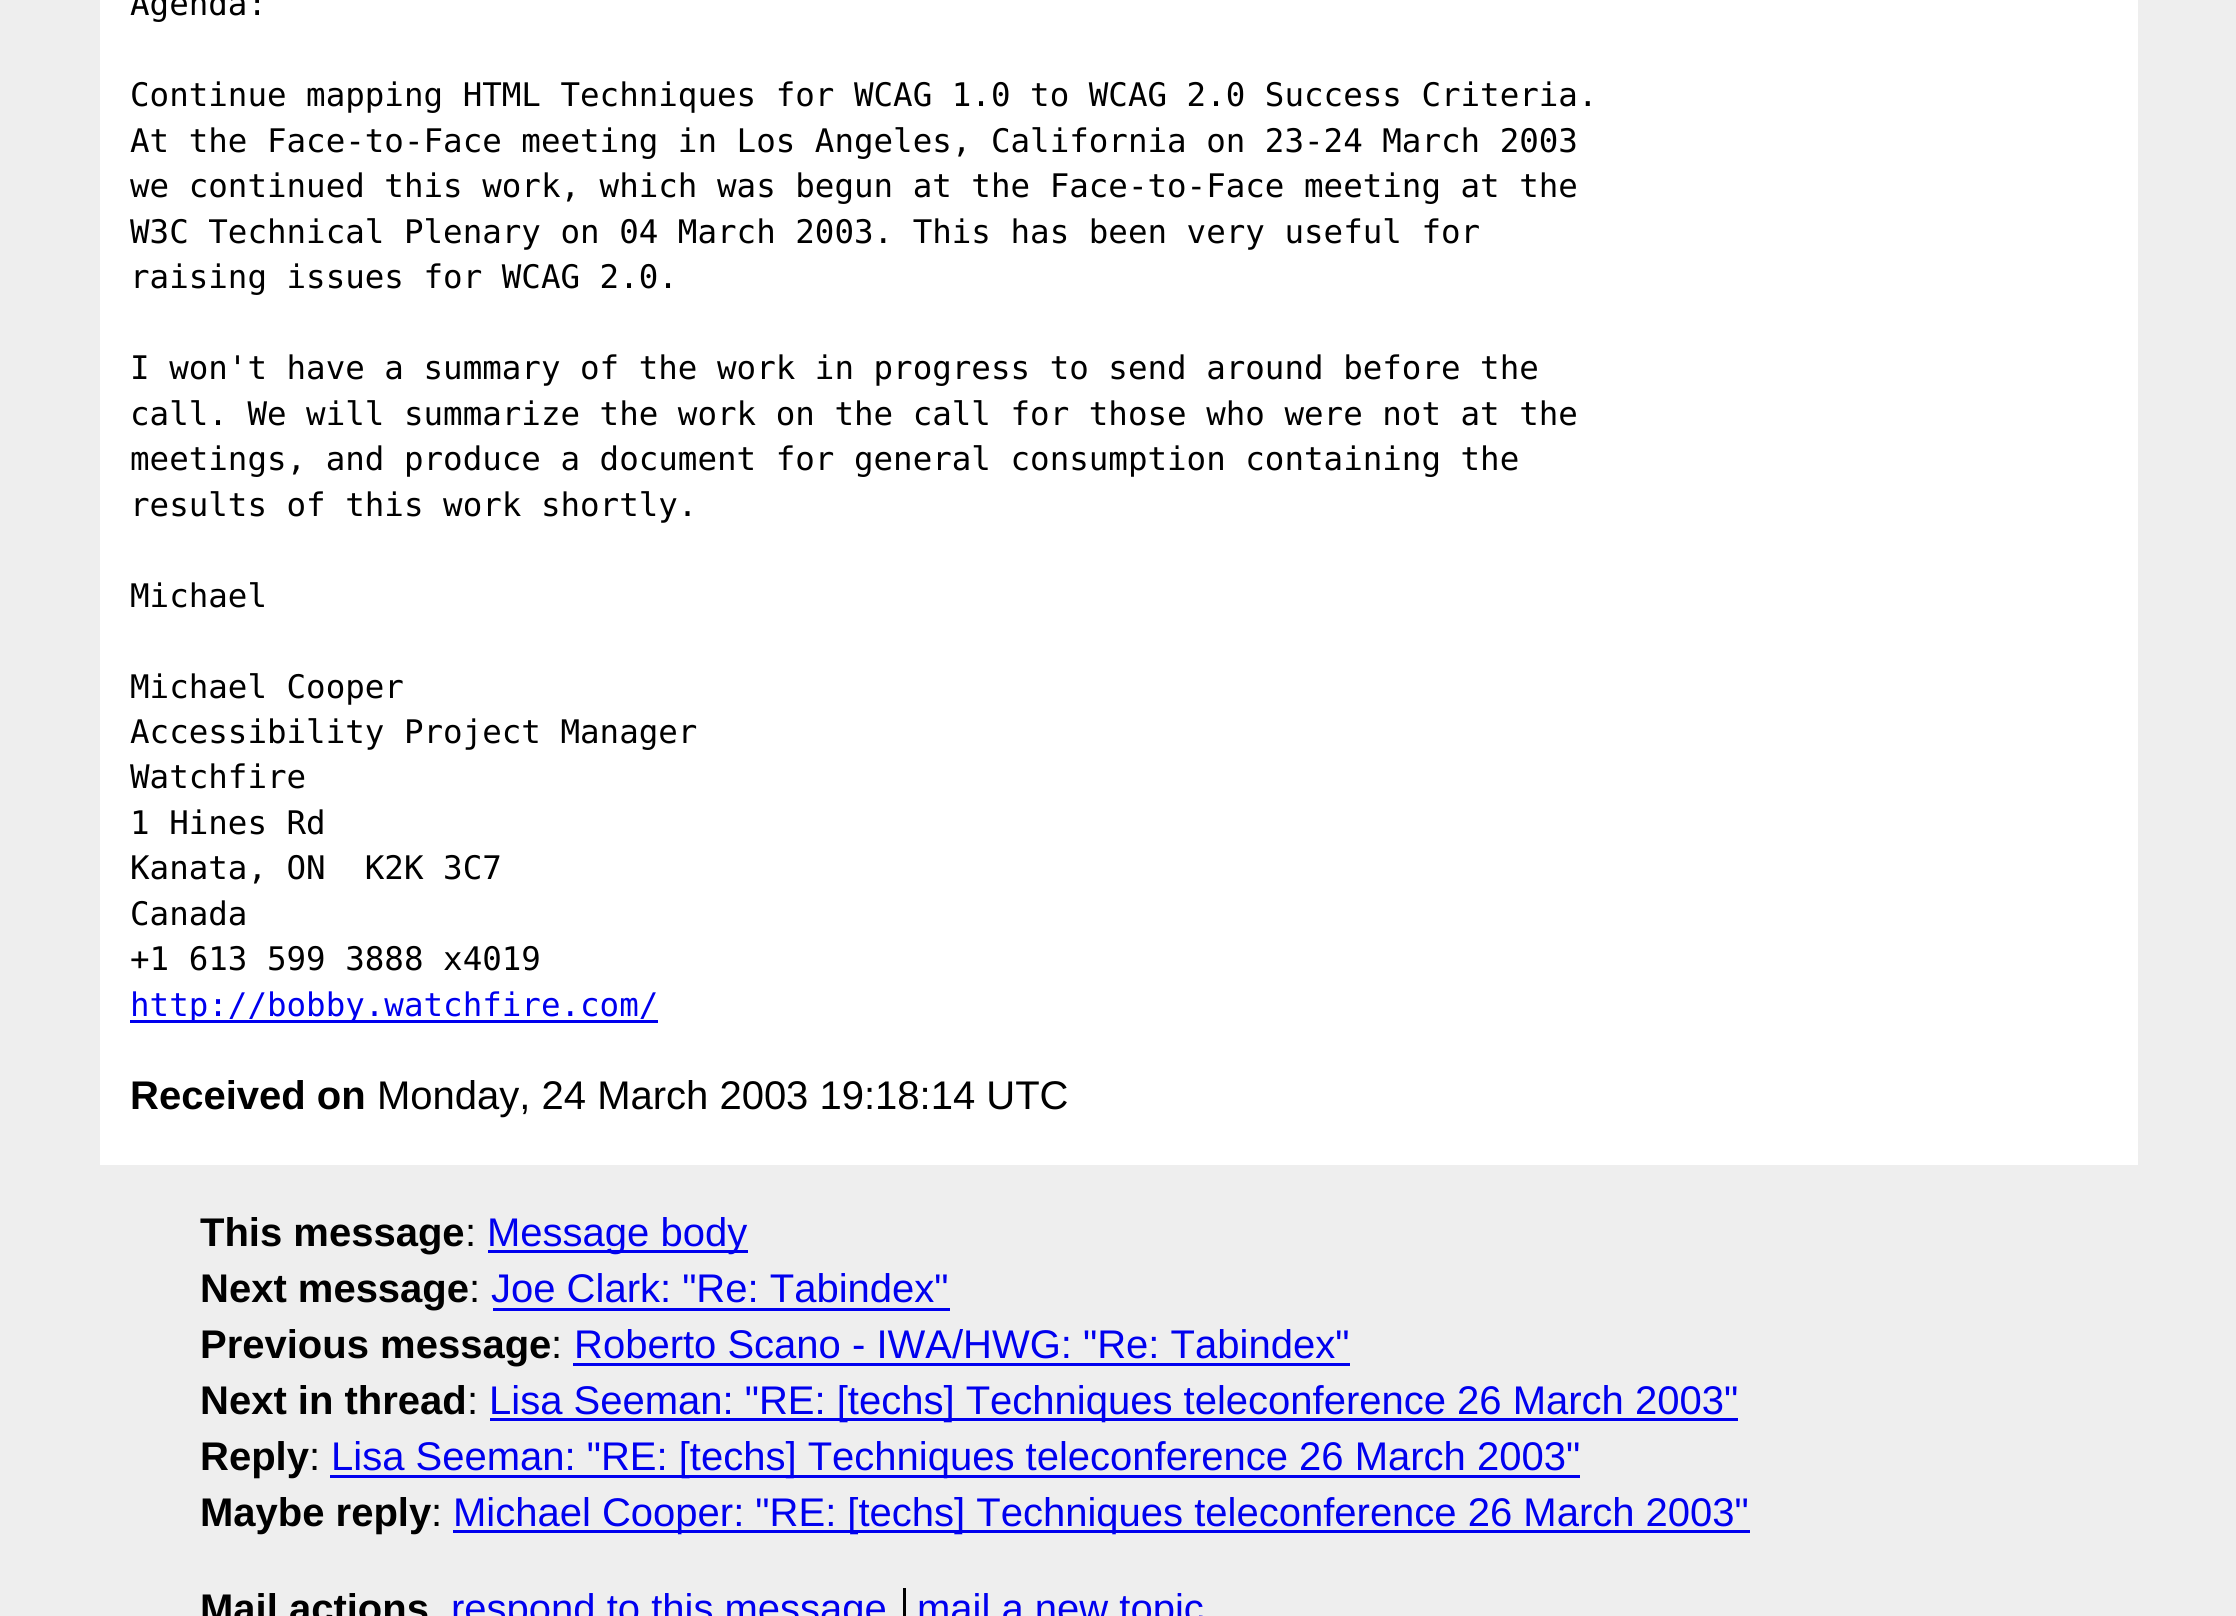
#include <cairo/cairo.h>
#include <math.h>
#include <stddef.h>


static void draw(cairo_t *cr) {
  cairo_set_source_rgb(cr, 238 / 255.0, 238 / 255.0, 238 / 255.0);
  cairo_paint(cr);
  cairo_set_source_rgb(cr, 1, 1, 1);
  cairo_rectangle(cr, 100, 0, 2038, 1165);
  cairo_fill(cr);
  cairo_set_source_rgb(cr, 0, 0, 238 / 255.0);
  cairo_rectangle(cr, 130, 1020, 528, 3);
  cairo_fill(cr);
  cairo_rectangle(cr, 488, 1250, 260, 3);
  cairo_fill(cr);
  cairo_rectangle(cr, 493, 1308, 457, 3);
  cairo_fill(cr);
  cairo_rectangle(cr, 573, 1363, 777, 3);
  cairo_fill(cr);
  cairo_rectangle(cr, 490, 1418, 1248, 3);
  cairo_fill(cr);
  cairo_rectangle(cr, 330, 1475, 1250, 3);
  cairo_fill(cr);
  cairo_rectangle(cr, 453, 1530, 1297, 3);
  cairo_fill(cr);
  cairo_set_source_rgb(cr, 0, 0, 0);
  cairo_rectangle(cr, 903, 1588, 3, 28);
  cairo_fill(cr);
  cairo_select_font_face(cr, "DejaVu Sans Mono", CAIRO_FONT_SLANT_NORMAL, CAIRO_FONT_WEIGHT_NORMAL);
  cairo_set_font_size(cr, 32.5);
  cairo_move_to(cr, 130, 15);
  cairo_show_text(cr, "Agenda:");
  cairo_move_to(cr, 130, 106);
  cairo_show_text(cr, "Continue mapping HTML Techniques for WCAG 1.0 to WCAG 2.0 Success Criteria.");
  cairo_move_to(cr, 130, 152);
  cairo_show_text(cr, "At the Face-to-Face meeting in Los Angeles, California on 23-24 March 2003");
  cairo_move_to(cr, 130, 197);
  cairo_show_text(cr, "we continued this work, which was begun at the Face-to-Face meeting at the");
  cairo_move_to(cr, 130, 243);
  cairo_show_text(cr, "W3C Technical Plenary on 04 March 2003. This has been very useful for");
  cairo_move_to(cr, 130, 288);
  cairo_show_text(cr, "raising issues for WCAG 2.0.");
  cairo_move_to(cr, 130, 379);
  cairo_show_text(cr, "I won't have a summary of the work in progress to send around before the");
  cairo_move_to(cr, 130, 425);
  cairo_show_text(cr, "call. We will summarize the work on the call for those who were not at the");
  cairo_move_to(cr, 130, 470);
  cairo_show_text(cr, "meetings, and produce a document for general consumption containing the");
  cairo_move_to(cr, 130, 516);
  cairo_show_text(cr, "results of this work shortly.");
  cairo_move_to(cr, 130, 607);
  cairo_show_text(cr, "Michael");
  cairo_move_to(cr, 130, 698);
  cairo_show_text(cr, "Michael Cooper");
  cairo_move_to(cr, 130, 743);
  cairo_show_text(cr, "Accessibility Project Manager");
  cairo_move_to(cr, 130, 788);
  cairo_show_text(cr, "Watchfire");
  cairo_move_to(cr, 130, 834);
  cairo_show_text(cr, "1 Hines Rd");
  cairo_move_to(cr, 130, 879);
  cairo_show_text(cr, "Kanata, ON  K2K 3C7");
  cairo_move_to(cr, 130, 925);
  cairo_show_text(cr, "Canada");
  cairo_move_to(cr, 130, 970);
  cairo_show_text(cr, "+1 613 599 3888 x4019");
  cairo_set_source_rgb(cr, 0, 0, 238 / 255.0);
  cairo_move_to(cr, 130, 1016);
  cairo_show_text(cr, "http://bobby.watchfire.com/");
  cairo_select_font_face(cr, "Liberation Sans", CAIRO_FONT_SLANT_NORMAL, CAIRO_FONT_WEIGHT_BOLD);
  cairo_set_font_size(cr, 40);
  cairo_set_source_rgb(cr, 0, 0, 0);
  cairo_move_to(cr, 130, 1109);
  cairo_show_text(cr, "Received on");
  cairo_select_font_face(cr, "Liberation Sans", CAIRO_FONT_SLANT_NORMAL, CAIRO_FONT_WEIGHT_NORMAL);
  cairo_move_to(cr, 377, 1109);
  cairo_show_text(cr, "Monday, 24 March 2003 19:18:14 UTC");
  cairo_select_font_face(cr, "Liberation Sans", CAIRO_FONT_SLANT_NORMAL, CAIRO_FONT_WEIGHT_BOLD);
  cairo_move_to(cr, 200, 1246);
  cairo_show_text(cr, "This message");
  cairo_select_font_face(cr, "Liberation Sans", CAIRO_FONT_SLANT_NORMAL, CAIRO_FONT_WEIGHT_NORMAL);
  cairo_move_to(cr, 465, 1246);
  cairo_show_text(cr, ":");
  cairo_set_source_rgb(cr, 0, 0, 238 / 255.0);
  cairo_move_to(cr, 487, 1246);
  cairo_show_text(cr, "Message body");
  cairo_select_font_face(cr, "Liberation Sans", CAIRO_FONT_SLANT_NORMAL, CAIRO_FONT_WEIGHT_BOLD);
  cairo_set_source_rgb(cr, 0, 0, 0);
  cairo_move_to(cr, 200, 1302);
  cairo_show_text(cr, "Next message");
  cairo_select_font_face(cr, "Liberation Sans", CAIRO_FONT_SLANT_NORMAL, CAIRO_FONT_WEIGHT_NORMAL);
  cairo_move_to(cr, 469, 1302);
  cairo_show_text(cr, ":");
  cairo_set_source_rgb(cr, 0, 0, 238 / 255.0);
  cairo_move_to(cr, 491, 1302);
  cairo_show_text(cr, "Joe Clark: \"Re: Tabindex\"");
  cairo_select_font_face(cr, "Liberation Sans", CAIRO_FONT_SLANT_NORMAL, CAIRO_FONT_WEIGHT_BOLD);
  cairo_set_source_rgb(cr, 0, 0, 0);
  cairo_move_to(cr, 200, 1358);
  cairo_show_text(cr, "Previous message");
  cairo_select_font_face(cr, "Liberation Sans", CAIRO_FONT_SLANT_NORMAL, CAIRO_FONT_WEIGHT_NORMAL);
  cairo_move_to(cr, 551, 1358);
  cairo_show_text(cr, ":");
  cairo_set_source_rgb(cr, 0, 0, 238 / 255.0);
  cairo_move_to(cr, 574, 1358);
  cairo_show_text(cr, "Roberto Scano - IWA/HWG: \"Re: Tabindex\"");
  cairo_select_font_face(cr, "Liberation Sans", CAIRO_FONT_SLANT_NORMAL, CAIRO_FONT_WEIGHT_BOLD);
  cairo_set_source_rgb(cr, 0, 0, 0);
  cairo_move_to(cr, 200, 1414);
  cairo_show_text(cr, "Next in thread");
  cairo_select_font_face(cr, "Liberation Sans", CAIRO_FONT_SLANT_NORMAL, CAIRO_FONT_WEIGHT_NORMAL);
  cairo_move_to(cr, 467, 1414);
  cairo_show_text(cr, ":");
  cairo_set_source_rgb(cr, 0, 0, 238 / 255.0);
  cairo_move_to(cr, 489, 1414);
  cairo_show_text(cr, "Lisa Seeman: \"RE: [techs] Techniques teleconference 26 March 2003\"");
  cairo_select_font_face(cr, "Liberation Sans", CAIRO_FONT_SLANT_NORMAL, CAIRO_FONT_WEIGHT_BOLD);
  cairo_set_source_rgb(cr, 0, 0, 0);
  cairo_move_to(cr, 200, 1470);
  cairo_show_text(cr, "Reply");
  cairo_select_font_face(cr, "Liberation Sans", CAIRO_FONT_SLANT_NORMAL, CAIRO_FONT_WEIGHT_NORMAL);
  cairo_move_to(cr, 309, 1470);
  cairo_show_text(cr, ":");
  cairo_set_source_rgb(cr, 0, 0, 238 / 255.0);
  cairo_move_to(cr, 331, 1470);
  cairo_show_text(cr, "Lisa Seeman: \"RE: [techs] Techniques teleconference 26 March 2003\"");
  cairo_select_font_face(cr, "Liberation Sans", CAIRO_FONT_SLANT_NORMAL, CAIRO_FONT_WEIGHT_BOLD);
  cairo_set_source_rgb(cr, 0, 0, 0);
  cairo_move_to(cr, 200, 1526);
  cairo_show_text(cr, "Maybe reply");
  cairo_select_font_face(cr, "Liberation Sans", CAIRO_FONT_SLANT_NORMAL, CAIRO_FONT_WEIGHT_NORMAL);
  cairo_move_to(cr, 431, 1526);
  cairo_show_text(cr, ":");
  cairo_set_source_rgb(cr, 0, 0, 238 / 255.0);
  cairo_move_to(cr, 453, 1526);
  cairo_show_text(cr, "Michael Cooper: \"RE: [techs] Techniques teleconference 26 March 2003\"");
  cairo_select_font_face(cr, "Liberation Sans", CAIRO_FONT_SLANT_NORMAL, CAIRO_FONT_WEIGHT_BOLD);
  cairo_set_source_rgb(cr, 0, 0, 0);
  cairo_move_to(cr, 200, 1622);
  cairo_show_text(cr, "Mail actions");
  cairo_select_font_face(cr, "Liberation Sans", CAIRO_FONT_SLANT_NORMAL, CAIRO_FONT_WEIGHT_NORMAL);
  cairo_set_source_rgb(cr, 0, 0, 238 / 255.0);
  cairo_move_to(cr, 451, 1622);
  cairo_show_text(cr, "respond to this message");
  cairo_move_to(cr, 917, 1622);
  cairo_show_text(cr, "mail a new topic");
}

int main(void) {
  cairo_surface_t *surface = cairo_image_surface_create(CAIRO_FORMAT_RGB24, 2236, 1616);
  cairo_t *cr = cairo_create(surface);
  cairo_font_options_t *options = cairo_font_options_create();
  cairo_font_options_set_hint_metrics(options, CAIRO_HINT_METRICS_OFF);
  cairo_font_options_set_hint_style(options, CAIRO_HINT_STYLE_NONE);
  cairo_set_font_options(cr, options);
  cairo_set_miter_limit(cr, 4);
  draw(cr);
  cairo_surface_write_to_png(surface, "out.png");
  cairo_font_options_destroy(options);
  cairo_destroy(cr);
  cairo_surface_destroy(surface);
  return 0;
}
